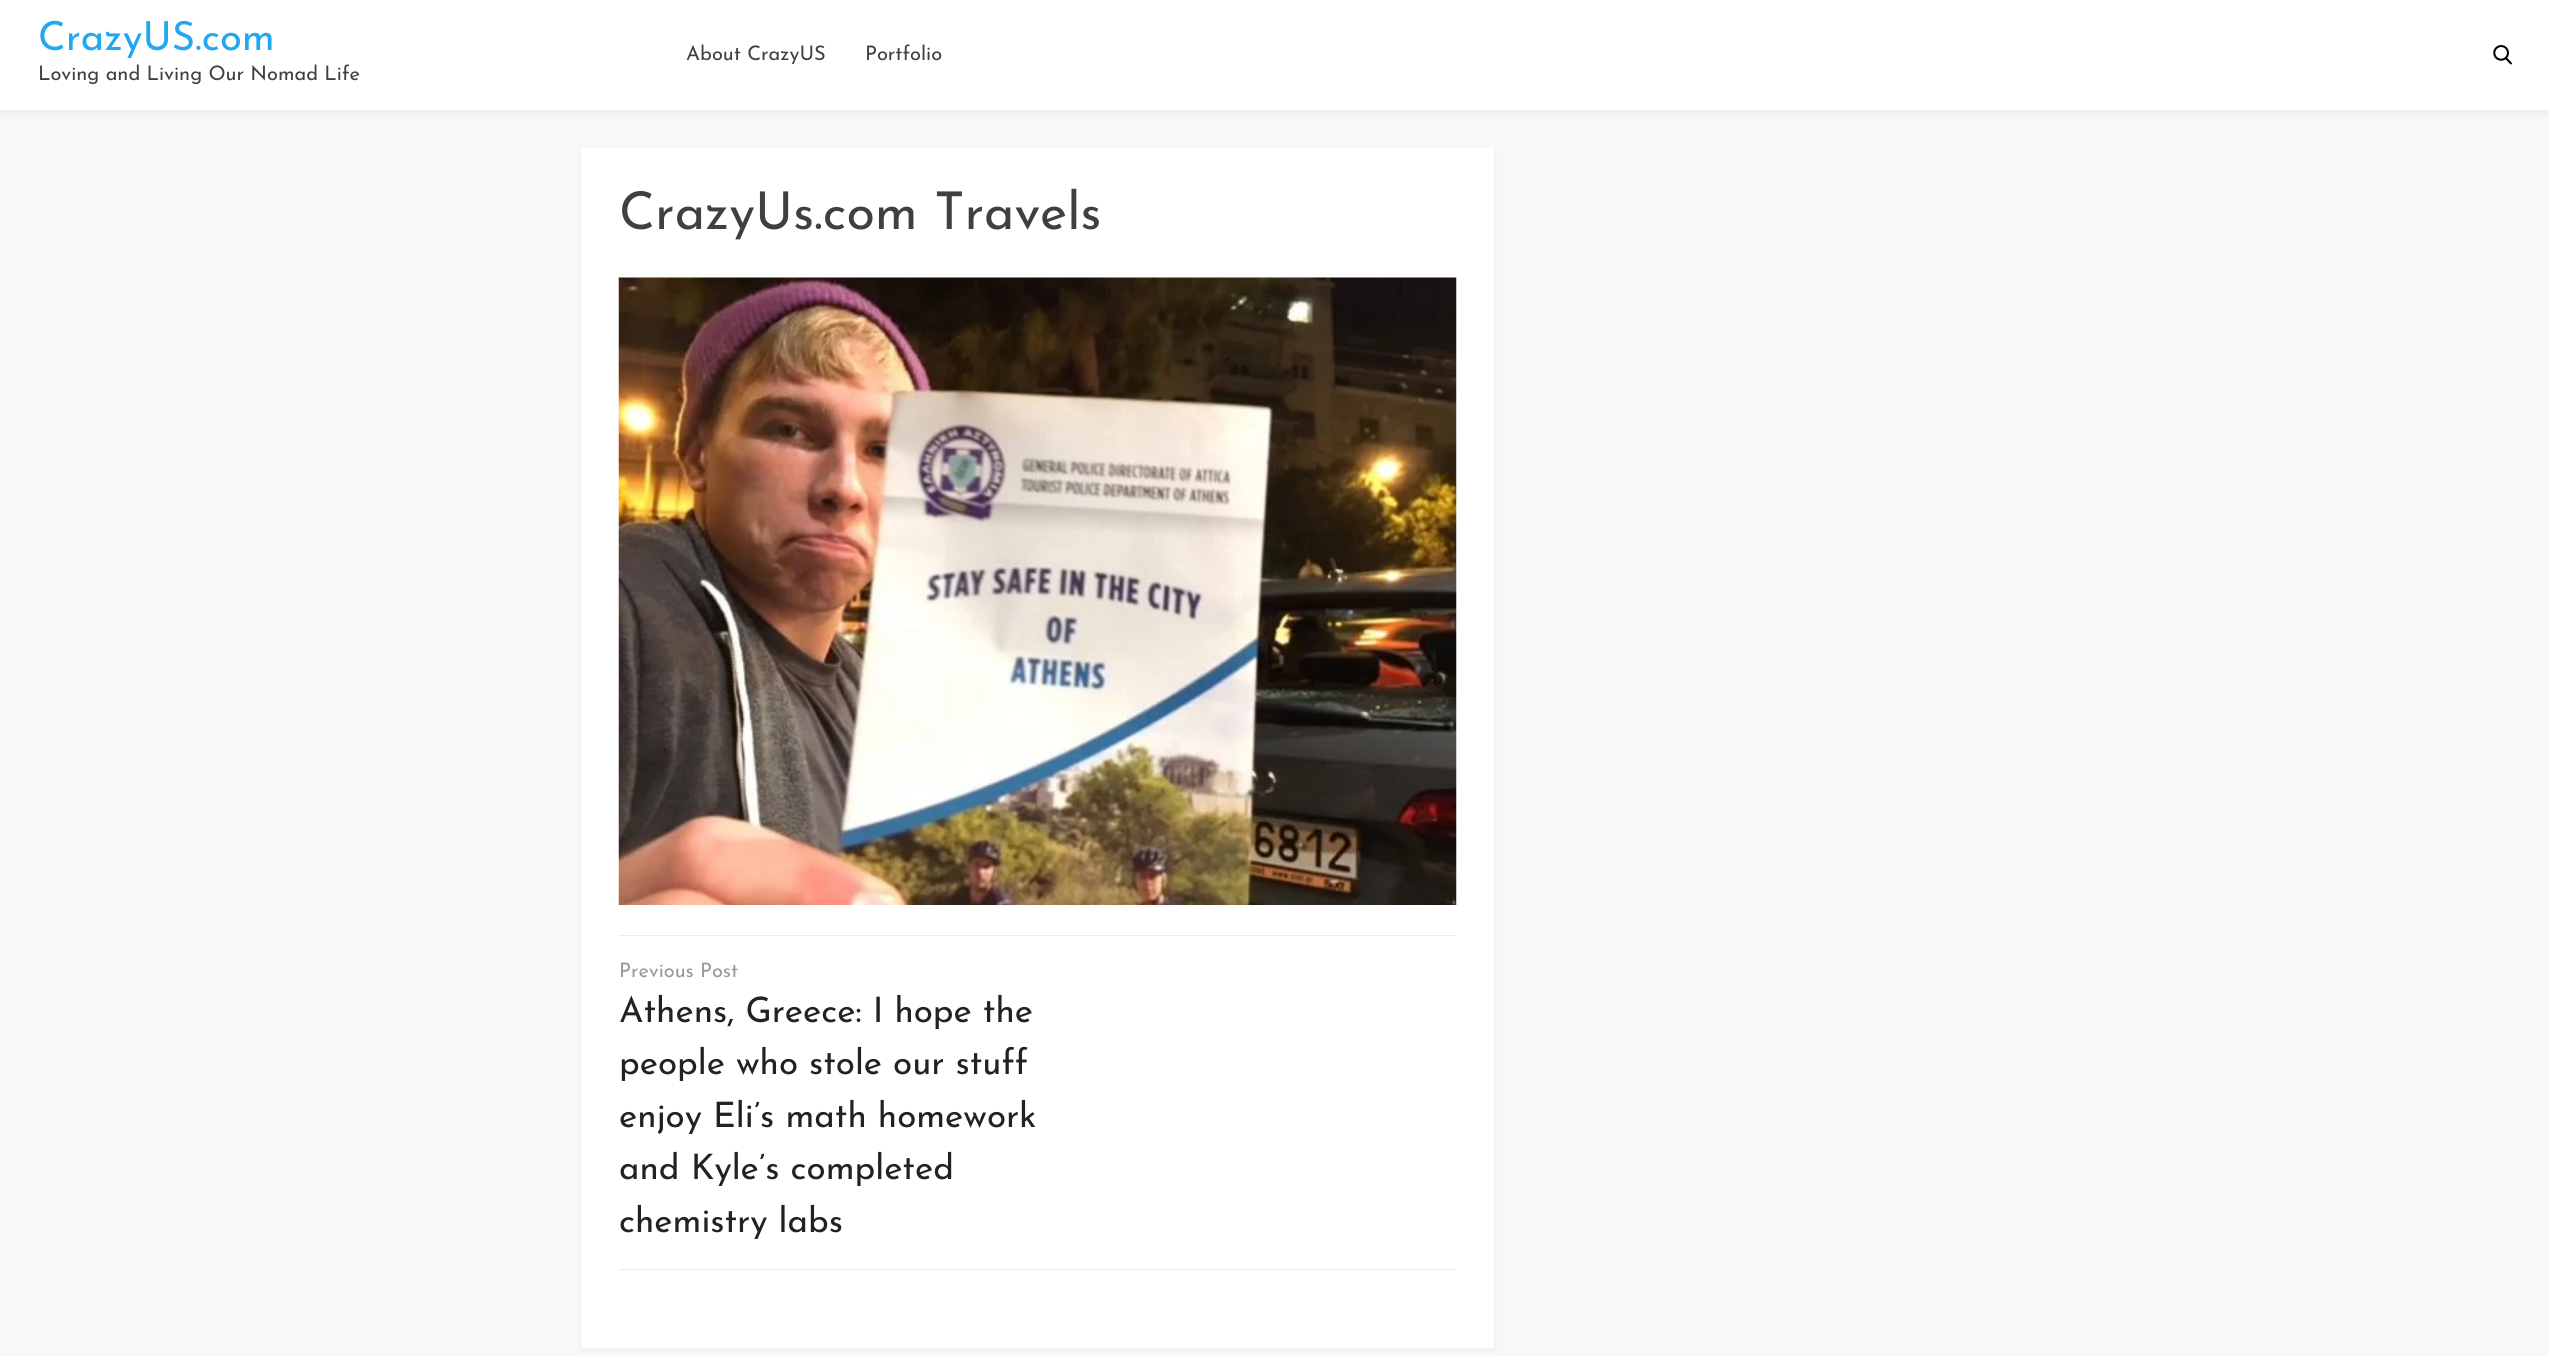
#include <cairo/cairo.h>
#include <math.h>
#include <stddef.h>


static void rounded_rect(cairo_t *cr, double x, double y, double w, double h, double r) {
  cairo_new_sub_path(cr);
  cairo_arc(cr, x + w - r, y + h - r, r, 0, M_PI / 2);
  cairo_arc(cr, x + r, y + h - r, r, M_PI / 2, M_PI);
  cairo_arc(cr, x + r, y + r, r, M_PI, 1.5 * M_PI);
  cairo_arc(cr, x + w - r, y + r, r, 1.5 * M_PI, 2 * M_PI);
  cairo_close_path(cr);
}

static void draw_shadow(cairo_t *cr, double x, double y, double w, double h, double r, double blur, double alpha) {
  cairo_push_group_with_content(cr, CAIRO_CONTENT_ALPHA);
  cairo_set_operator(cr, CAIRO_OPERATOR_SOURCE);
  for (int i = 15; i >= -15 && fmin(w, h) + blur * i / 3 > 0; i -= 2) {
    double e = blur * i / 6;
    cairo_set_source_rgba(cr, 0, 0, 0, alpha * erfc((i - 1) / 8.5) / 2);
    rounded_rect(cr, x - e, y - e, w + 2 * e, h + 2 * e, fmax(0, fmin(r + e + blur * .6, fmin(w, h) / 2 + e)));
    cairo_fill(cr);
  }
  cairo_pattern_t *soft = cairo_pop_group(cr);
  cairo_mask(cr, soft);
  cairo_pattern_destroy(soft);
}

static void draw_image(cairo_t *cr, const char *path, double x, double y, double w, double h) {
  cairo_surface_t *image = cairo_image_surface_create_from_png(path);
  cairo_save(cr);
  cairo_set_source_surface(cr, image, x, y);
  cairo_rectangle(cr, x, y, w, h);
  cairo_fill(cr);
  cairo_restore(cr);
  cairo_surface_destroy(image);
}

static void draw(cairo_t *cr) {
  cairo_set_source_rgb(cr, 247 / 255.0, 248 / 255.0, 250 / 255.0);
  cairo_paint(cr);
  cairo_set_source_rgb(cr, 238 / 255.0, 238 / 255.0, 238 / 255.0);
  draw_shadow(cr, 0, 4, 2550, 110, 0, 2.5, 1);
  cairo_set_source_rgb(cr, 1, 1, 1);
  cairo_rectangle(cr, 0, 0, 2549, 110);
  cairo_fill(cr);
  draw_image(cr, "images/1.png", 2493, 45, 19, 20);
  cairo_set_source_rgb(cr, 238 / 255.0, 238 / 255.0, 238 / 255.0);
  draw_shadow(cr, 581, 151, 913, 1200, 0, 2.5, 1);
  cairo_set_source_rgb(cr, 1, 1, 1);
  cairo_rectangle(cr, 581, 148, 913, 1200);
  cairo_fill(cr);
  draw_image(cr, "images/2.png", 618, 277, 839, 628);
  cairo_set_source_rgb(cr, 236 / 255.0, 236 / 255.0, 236 / 255.0);
  cairo_rectangle(cr, 619, 935, 837, 1);
  cairo_fill(cr);
  cairo_rectangle(cr, 619, 1269, 837, 1);
  cairo_fill(cr);
  cairo_select_font_face(cr, "Josefin Sans", CAIRO_FONT_SLANT_NORMAL, CAIRO_FONT_WEIGHT_NORMAL);
  cairo_set_font_size(cr, 40);
  cairo_set_source_rgb(cr, 34 / 255.0, 167 / 255.0, 240 / 255.0);
  cairo_move_to(cr, 38, 50);
  cairo_show_text(cr, "CrazyUS.com");
  cairo_set_font_size(cr, 20);
  cairo_set_source_rgb(cr, 64 / 255.0, 64 / 255.0, 64 / 255.0);
  cairo_move_to(cr, 38, 80);
  cairo_show_text(cr, "Loving and Living Our Nomad Life");
  cairo_move_to(cr, 686, 60);
  cairo_show_text(cr, "About CrazyUS");
  cairo_move_to(cr, 865, 60);
  cairo_show_text(cr, "Portfolio");
  cairo_set_font_size(cr, 52);
  cairo_move_to(cr, 619, 229);
  cairo_show_text(cr, "CrazyUs.com Travels");
  cairo_set_font_size(cr, 20);
  cairo_set_source_rgb(cr, 153 / 255.0, 153 / 255.0, 153 / 255.0);
  cairo_move_to(cr, 619, 977);
  cairo_show_text(cr, "Previous Post");
  cairo_set_font_size(cr, 35);
  cairo_set_source_rgb(cr, 34 / 255.0, 34 / 255.0, 34 / 255.0);
  cairo_move_to(cr, 619, 1022);
  cairo_show_text(cr, "Athens, Greece: I hope the");
  cairo_move_to(cr, 619, 1074);
  cairo_show_text(cr, "people who stole our stuff");
  cairo_move_to(cr, 619, 1127);
  cairo_show_text(cr, "enjoy Eli’s math homework");
  cairo_move_to(cr, 619, 1179);
  cairo_show_text(cr, "and Kyle’s completed");
  cairo_move_to(cr, 619, 1232);
  cairo_show_text(cr, "chemistry labs");
}

int main(void) {
  cairo_surface_t *surface = cairo_image_surface_create(CAIRO_FORMAT_RGB24, 2549, 1356);
  cairo_t *cr = cairo_create(surface);
  cairo_font_options_t *options = cairo_font_options_create();
  cairo_font_options_set_hint_metrics(options, CAIRO_HINT_METRICS_OFF);
  cairo_font_options_set_hint_style(options, CAIRO_HINT_STYLE_NONE);
  cairo_set_font_options(cr, options);
  cairo_set_miter_limit(cr, 4);
  draw(cr);
  cairo_surface_write_to_png(surface, "out.png");
  cairo_font_options_destroy(options);
  cairo_destroy(cr);
  cairo_surface_destroy(surface);
  return 0;
}
